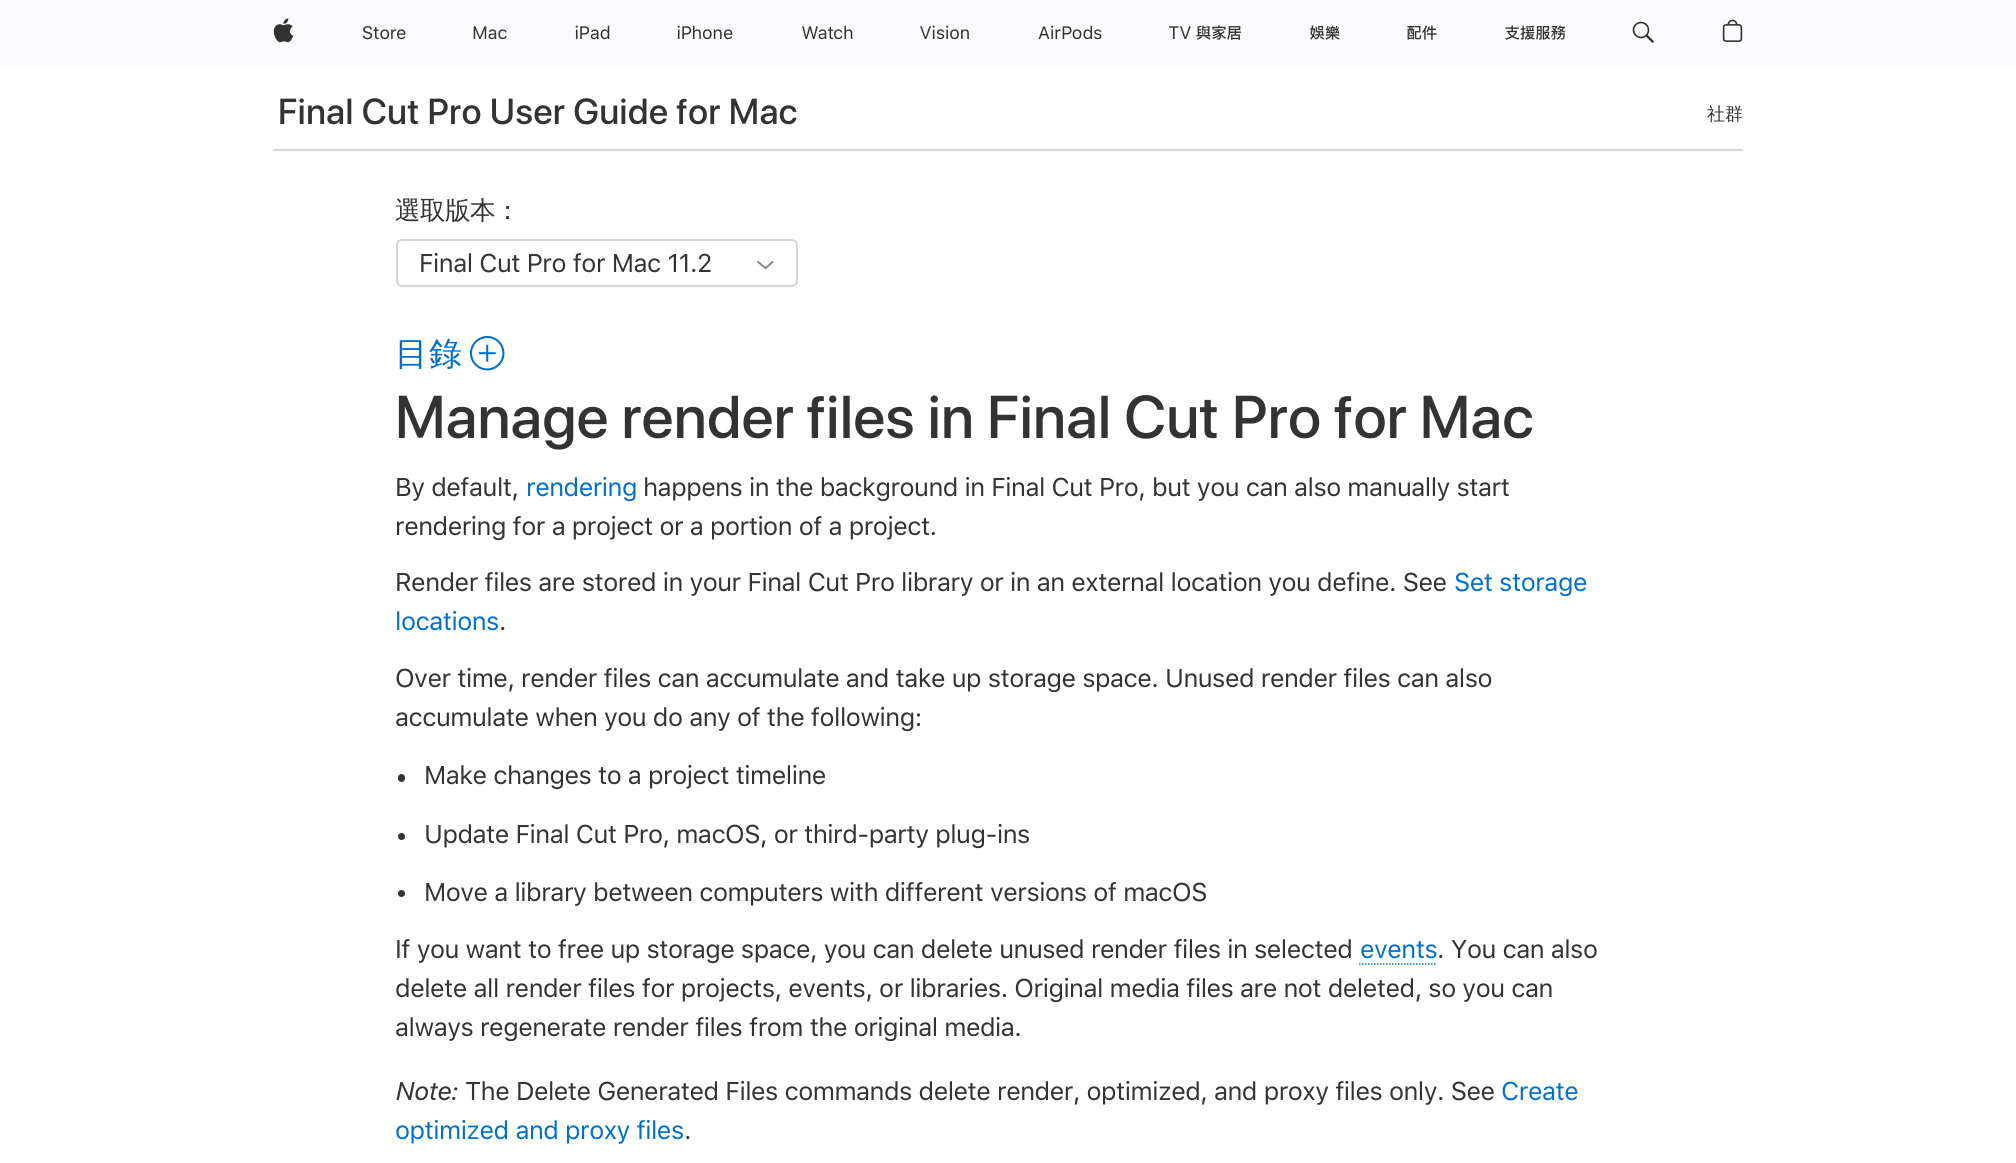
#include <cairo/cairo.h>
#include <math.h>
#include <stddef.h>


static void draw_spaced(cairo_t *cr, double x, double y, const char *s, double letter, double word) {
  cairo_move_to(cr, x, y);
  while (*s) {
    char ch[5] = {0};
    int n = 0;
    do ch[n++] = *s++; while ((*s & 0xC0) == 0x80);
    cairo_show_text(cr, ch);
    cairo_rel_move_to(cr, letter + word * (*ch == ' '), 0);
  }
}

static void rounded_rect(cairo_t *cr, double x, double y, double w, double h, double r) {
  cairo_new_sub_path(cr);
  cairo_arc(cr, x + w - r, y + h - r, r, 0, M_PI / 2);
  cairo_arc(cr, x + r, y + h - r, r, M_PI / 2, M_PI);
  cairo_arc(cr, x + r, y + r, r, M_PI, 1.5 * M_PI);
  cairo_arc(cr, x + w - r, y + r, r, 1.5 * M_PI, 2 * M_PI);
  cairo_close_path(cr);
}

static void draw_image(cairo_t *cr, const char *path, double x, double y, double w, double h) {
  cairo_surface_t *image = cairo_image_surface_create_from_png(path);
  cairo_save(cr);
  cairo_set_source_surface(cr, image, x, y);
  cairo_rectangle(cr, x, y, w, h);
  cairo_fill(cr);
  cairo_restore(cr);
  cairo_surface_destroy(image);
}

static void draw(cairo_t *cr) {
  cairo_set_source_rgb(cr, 1, 1, 1);
  cairo_paint(cr);
  cairo_set_source_rgb(cr, 251 / 255.0, 251 / 255.0, 253 / 255.0);
  cairo_rectangle(cr, 0, 0, 2016, 66);
  cairo_fill(cr);
  draw_image(cr, "images/1.png", 273, 18, 21, 25);
  draw_image(cr, "images/2.png", 362, 26, 44, 14);
  draw_image(cr, "images/3.png", 473, 26, 34, 14);
  draw_image(cr, "images/4.png", 575, 25, 35, 15);
  draw_image(cr, "images/5.png", 677, 25, 56, 15);
  draw_image(cr, "images/6.png", 802, 25, 51, 15);
  draw_image(cr, "images/7.png", 920, 25, 49, 15);
  draw_image(cr, "images/8.png", 1038, 25, 64, 15);
  draw_image(cr, "images/9.png", 1169, 25, 72, 15);
  draw_image(cr, "images/10.png", 1310, 25, 30, 15);
  draw_image(cr, "images/11.png", 1407, 25, 30, 15);
  draw_image(cr, "images/12.png", 1505, 25, 61, 15);
  draw_image(cr, "images/13.png", 1632, 21, 22, 22);
  draw_image(cr, "images/14.png", 1722, 19, 21, 23);
  cairo_set_source_rgb(cr, 214 / 255.0, 214 / 255.0, 214 / 255.0);
  cairo_rectangle(cr, 273, 149, 1470, 2);
  cairo_fill(cr);
  rounded_rect(cr, 397, 240, 400, 46, 5);
  cairo_stroke(cr);
  draw_image(cr, "images/15.png", 757, 260, 17, 10);
  draw_image(cr, "images/16.png", 470, 336, 35, 35);
  cairo_set_source_rgb(cr, 51 / 255.0, 51 / 255.0, 51 / 255.0);
  rounded_rect(cr, 398, 774, 7, 8, 3.5);
  cairo_fill(cr);
  cairo_arc(cr, 401.5, 836.5, 3.5, 0, 2 * M_PI);
  cairo_fill(cr);
  cairo_arc(cr, 401.5, 893.5, 3.5, 0, 2 * M_PI);
  cairo_fill(cr);
  cairo_new_path(cr);
  cairo_move_to(cr, 1359, 964);
  cairo_line_to(cr, 1437, 964);
  cairo_set_source_rgb(cr, 0, 112 / 255.0, 201 / 255.0);
  cairo_set_line_width(cr, 1.5);
  cairo_set_dash(cr, (double[]){1.5, 1.5}, 2, 0);
  cairo_stroke(cr);
  cairo_select_font_face(cr, "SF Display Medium", CAIRO_FONT_SLANT_NORMAL, CAIRO_FONT_WEIGHT_NORMAL);
  cairo_set_font_size(cr, 36);
  cairo_set_source_rgb(cr, 51 / 255.0, 51 / 255.0, 51 / 255.0);
  draw_spaced(cr, 278, 124, "Final Cut Pro User Guide for Mac", 0.55, 0);
  cairo_select_font_face(cr, "WenQuanYi Zen Hei Medium", CAIRO_FONT_SLANT_NORMAL, CAIRO_FONT_WEIGHT_NORMAL);
  cairo_set_font_size(cr, 18);
  cairo_move_to(cr, 1707, 120);
  cairo_show_text(cr, "社群");
  cairo_set_font_size(cr, 25.5);
  draw_spaced(cr, 395, 219, "選取版本：", -0.54, 0);
  cairo_select_font_face(cr, "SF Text", CAIRO_FONT_SLANT_NORMAL, CAIRO_FONT_WEIGHT_NORMAL);
  draw_spaced(cr, 419, 272, "Final Cut Pro for Mac 11.2", -0.54, 0);
  cairo_select_font_face(cr, "WenQuanYi Zen Hei Medium", CAIRO_FONT_SLANT_NORMAL, CAIRO_FONT_WEIGHT_NORMAL);
  cairo_set_font_size(cr, 33);
  cairo_set_source_rgb(cr, 0, 112 / 255.0, 201 / 255.0);
  draw_spaced(cr, 395, 365, "目錄", 1, 0);
  cairo_select_font_face(cr, "SF Display Medium", CAIRO_FONT_SLANT_NORMAL, CAIRO_FONT_WEIGHT_NORMAL);
  cairo_set_font_size(cr, 60);
  cairo_set_source_rgb(cr, 51 / 255.0, 51 / 255.0, 51 / 255.0);
  draw_spaced(cr, 395, 438, "Manage render files in Final Cut Pro for Mac", 0.5, 0);
  cairo_select_font_face(cr, "SF Text", CAIRO_FONT_SLANT_NORMAL, CAIRO_FONT_WEIGHT_NORMAL);
  cairo_set_font_size(cr, 25.5);
  draw_spaced(cr, 395, 496, "By default,", -0.54, 0);
  cairo_set_source_rgb(cr, 0, 112 / 255.0, 201 / 255.0);
  draw_spaced(cr, 526, 496, "rendering", -0.54, 0);
  cairo_set_source_rgb(cr, 51 / 255.0, 51 / 255.0, 51 / 255.0);
  draw_spaced(cr, 643, 496, "happens in the background in Final Cut Pro, but you can also manually start", -0.54, 0);
  draw_spaced(cr, 395, 535, "rendering for a project or a portion of a project.", -0.54, 0);
  draw_spaced(cr, 395, 591, "Render files are stored in your Final Cut Pro library or in an external location you define. See", -0.54, 0);
  cairo_set_source_rgb(cr, 0, 112 / 255.0, 201 / 255.0);
  draw_spaced(cr, 1454, 591, "Set storage", -0.54, 0);
  draw_spaced(cr, 395, 630, "locations", -0.54, 0);
  cairo_set_source_rgb(cr, 51 / 255.0, 51 / 255.0, 51 / 255.0);
  draw_spaced(cr, 499, 630, ".", -0.54, 0);
  draw_spaced(cr, 395, 687, "Over time, render files can accumulate and take up storage space. Unused render files can also", -0.54, 0);
  draw_spaced(cr, 395, 726, "accumulate when you do any of the following:", -0.54, 0);
  draw_spaced(cr, 424, 784, "Make changes to a project timeline", -0.54, 0);
  draw_spaced(cr, 424, 843, "Update Final Cut Pro, macOS, or third-party plug-ins", -0.54, 0);
  draw_spaced(cr, 424, 901, "Move a library between computers with different versions of macOS", -0.54, 0);
  draw_spaced(cr, 395, 958, "If you want to free up storage space, you can delete unused render files in selected", -0.54, 0);
  cairo_set_source_rgb(cr, 0, 112 / 255.0, 201 / 255.0);
  draw_spaced(cr, 1360, 958, "events", -0.54, 0);
  cairo_set_source_rgb(cr, 51 / 255.0, 51 / 255.0, 51 / 255.0);
  draw_spaced(cr, 1437, 958, ". You can also", -0.54, 0);
  draw_spaced(cr, 395, 997, "delete all render files for projects, events, or libraries. Original media files are not deleted, so you can", -0.54, 0);
  draw_spaced(cr, 395, 1036, "always regenerate render files from the original media.", -0.54, 0);
  cairo_select_font_face(cr, "SF Text", CAIRO_FONT_SLANT_ITALIC, CAIRO_FONT_WEIGHT_NORMAL);
  draw_spaced(cr, 395, 1100, "Note:", -0.54, 0);
  cairo_select_font_face(cr, "SF Text", CAIRO_FONT_SLANT_NORMAL, CAIRO_FONT_WEIGHT_NORMAL);
  draw_spaced(cr, 465, 1100, "The Delete Generated Files commands delete render, optimized, and proxy files only. See", -0.54, 0);
  cairo_set_source_rgb(cr, 0, 112 / 255.0, 201 / 255.0);
  draw_spaced(cr, 1501, 1100, "Create", -0.54, 0);
  draw_spaced(cr, 395, 1139, "optimized and proxy files", -0.54, 0);
  cairo_set_source_rgb(cr, 51 / 255.0, 51 / 255.0, 51 / 255.0);
  draw_spaced(cr, 684, 1139, ".", -0.54, 0);
}

int main(void) {
  cairo_surface_t *surface = cairo_image_surface_create(CAIRO_FORMAT_RGB24, 2016, 1163);
  cairo_t *cr = cairo_create(surface);
  cairo_font_options_t *options = cairo_font_options_create();
  cairo_font_options_set_hint_metrics(options, CAIRO_HINT_METRICS_OFF);
  cairo_font_options_set_hint_style(options, CAIRO_HINT_STYLE_NONE);
  cairo_set_font_options(cr, options);
  cairo_set_miter_limit(cr, 4);
  draw(cr);
  cairo_surface_write_to_png(surface, "out.png");
  cairo_font_options_destroy(options);
  cairo_destroy(cr);
  cairo_surface_destroy(surface);
  return 0;
}
